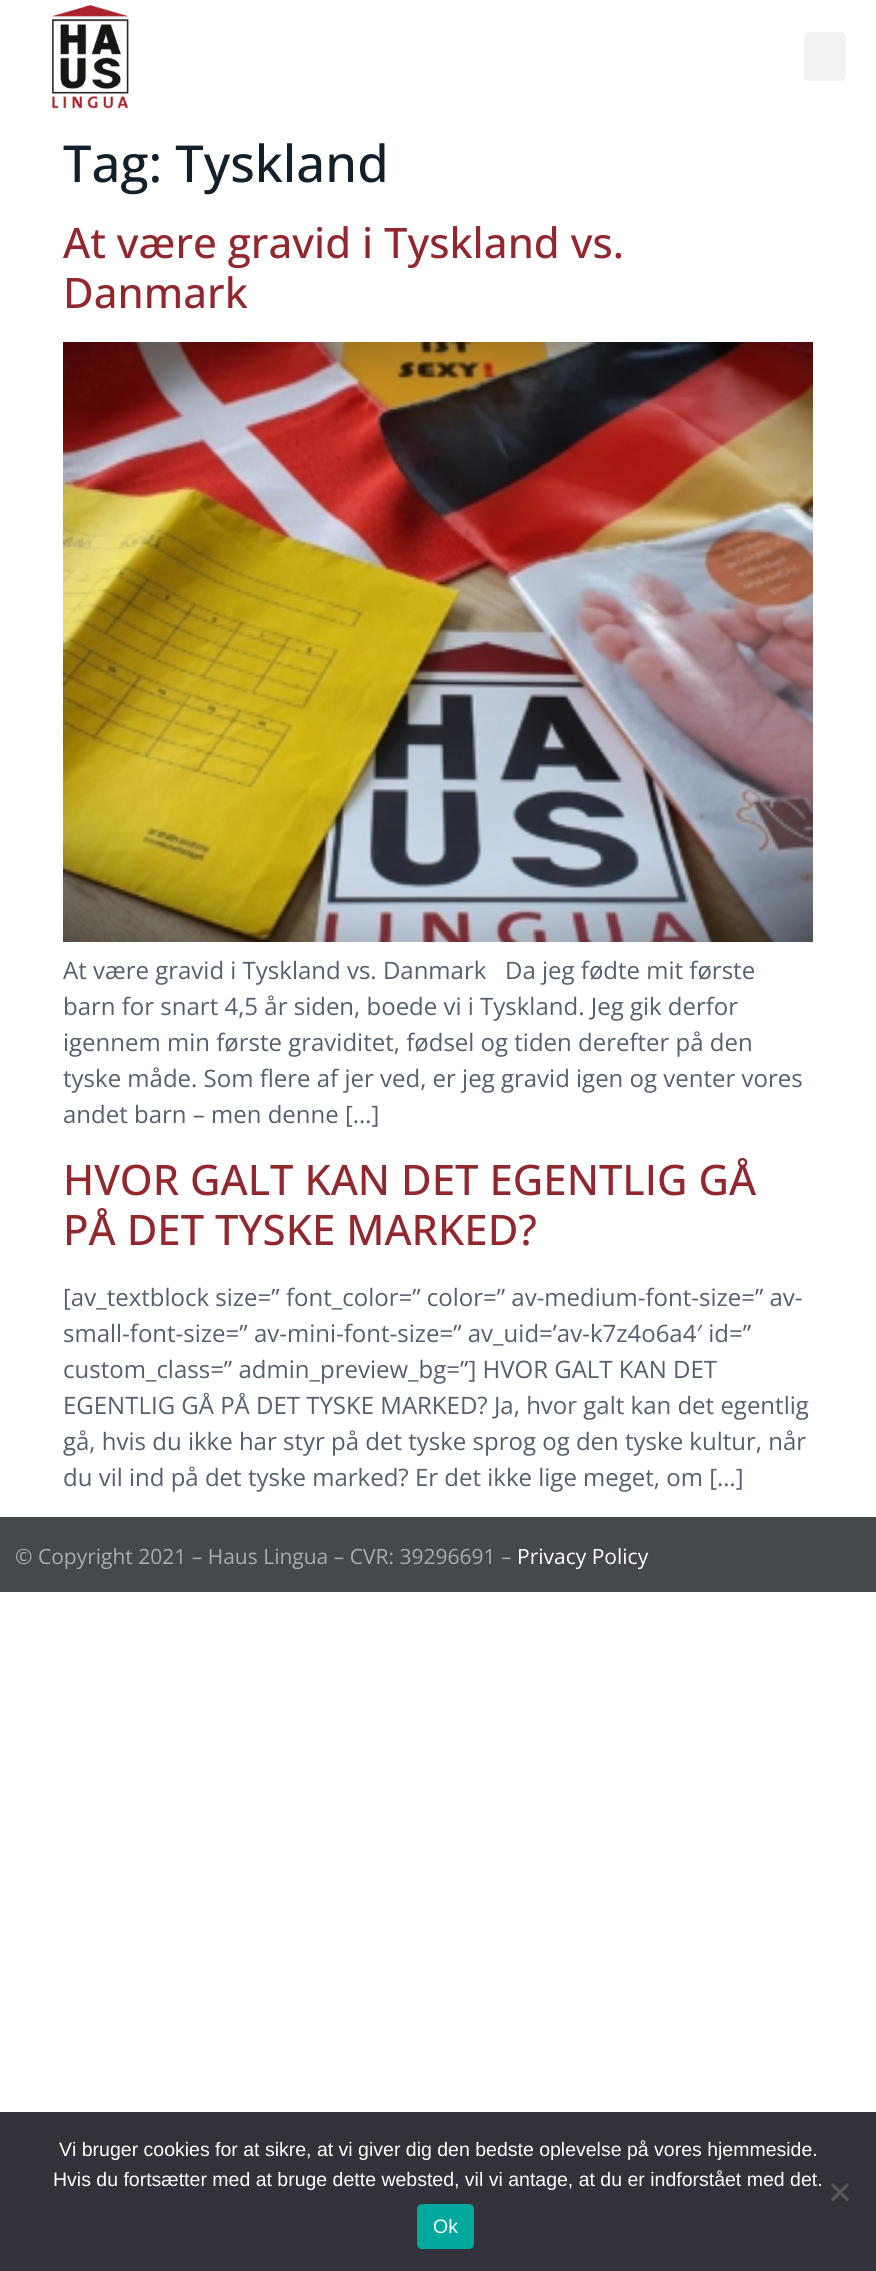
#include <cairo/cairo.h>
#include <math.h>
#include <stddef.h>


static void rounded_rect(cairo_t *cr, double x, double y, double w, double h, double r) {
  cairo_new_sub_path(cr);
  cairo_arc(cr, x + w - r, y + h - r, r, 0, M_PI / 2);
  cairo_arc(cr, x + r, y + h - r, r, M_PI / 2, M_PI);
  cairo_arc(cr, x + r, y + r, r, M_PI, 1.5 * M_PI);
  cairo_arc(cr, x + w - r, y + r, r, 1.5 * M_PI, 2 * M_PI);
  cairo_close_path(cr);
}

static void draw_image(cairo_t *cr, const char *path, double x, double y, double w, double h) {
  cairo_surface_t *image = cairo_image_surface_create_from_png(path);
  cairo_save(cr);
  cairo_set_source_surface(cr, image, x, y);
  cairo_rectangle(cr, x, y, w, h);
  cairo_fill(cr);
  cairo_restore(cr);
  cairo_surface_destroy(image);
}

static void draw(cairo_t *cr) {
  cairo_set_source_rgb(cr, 1, 1, 1);
  cairo_paint(cr);
  draw_image(cr, "images/1.png", 51, 5, 78, 104);
  cairo_set_source_rgb(cr, 242 / 255.0, 242 / 255.0, 242 / 255.0);
  rounded_rect(cr, 804, 32, 42, 49, 5);
  cairo_fill(cr);
  draw_image(cr, "images/2.png", 63, 342, 750, 600);
  cairo_set_source_rgb(cr, 69 / 255.0, 73 / 255.0, 77 / 255.0);
  cairo_rectangle(cr, 0, 1517, 876, 75);
  cairo_fill(cr);
  cairo_set_source_rgb(cr, 50 / 255.0, 50 / 255.0, 58 / 255.0);
  cairo_rectangle(cr, 0, 2112, 876, 159);
  cairo_fill(cr);
  cairo_set_source_rgb(cr, 89 / 255.0, 89 / 255.0, 93 / 255.0);
  cairo_new_path(cr);
  cairo_move_to(cr, 847, 2183);
  cairo_line_to(cr, 849, 2185.5);
  cairo_line_to(cr, 833, 2201.5);
  cairo_line_to(cr, 831, 2199);
  cairo_close_path(cr);
  cairo_fill(cr);
  cairo_new_path(cr);
  cairo_move_to(cr, 831, 2185.5);
  cairo_line_to(cr, 833, 2183);
  cairo_line_to(cr, 849, 2199);
  cairo_line_to(cr, 847, 2201.5);
  cairo_close_path(cr);
  cairo_fill(cr);
  cairo_set_source_rgb(cr, 0, 169 / 255.0, 157 / 255.0);
  rounded_rect(cr, 417, 2204, 57, 45, 5);
  cairo_fill(cr);
  cairo_select_font_face(cr, "Open Sans Medium", CAIRO_FONT_SLANT_NORMAL, CAIRO_FONT_WEIGHT_NORMAL);
  cairo_set_font_size(cr, 51);
  cairo_set_source_rgb(cr, 17 / 255.0, 32 / 255.0, 42 / 255.0);
  cairo_move_to(cr, 63, 182);
  cairo_show_text(cr, "Tag: Tyskland");
  cairo_set_font_size(cr, 42);
  cairo_set_source_rgb(cr, 146 / 255.0, 40 / 255.0, 45 / 255.0);
  cairo_move_to(cr, 63, 258);
  cairo_show_text(cr, "At være gravid i Tyskland vs.");
  cairo_move_to(cr, 63, 308);
  cairo_show_text(cr, "Danmark");
  cairo_select_font_face(cr, "Open Sans", CAIRO_FONT_SLANT_NORMAL, CAIRO_FONT_WEIGHT_NORMAL);
  cairo_set_font_size(cr, 24);
  cairo_set_source_rgb(cr, 85 / 255.0, 96 / 255.0, 110 / 255.0);
  cairo_move_to(cr, 63, 979);
  cairo_show_text(cr, "At være gravid i Tyskland vs. Danmark   Da jeg fødte mit første");
  cairo_move_to(cr, 63, 1015);
  cairo_show_text(cr, "barn for snart 4,5 år siden, boede vi i Tyskland. Jeg gik derfor");
  cairo_move_to(cr, 63, 1051);
  cairo_show_text(cr, "igennem min første graviditet, fødsel og tiden derefter på den");
  cairo_move_to(cr, 63, 1087);
  cairo_show_text(cr, "tyske måde. Som flere af jer ved, er jeg gravid igen og venter vores");
  cairo_move_to(cr, 63, 1123);
  cairo_show_text(cr, "andet barn – men denne […]");
  cairo_select_font_face(cr, "Open Sans Medium", CAIRO_FONT_SLANT_NORMAL, CAIRO_FONT_WEIGHT_NORMAL);
  cairo_set_font_size(cr, 42);
  cairo_set_source_rgb(cr, 146 / 255.0, 40 / 255.0, 45 / 255.0);
  cairo_move_to(cr, 63, 1195);
  cairo_show_text(cr, "HVOR GALT KAN DET EGENTLIG GÅ");
  cairo_move_to(cr, 63, 1245);
  cairo_show_text(cr, "PÅ DET TYSKE MARKED?");
  cairo_select_font_face(cr, "Open Sans", CAIRO_FONT_SLANT_NORMAL, CAIRO_FONT_WEIGHT_NORMAL);
  cairo_set_font_size(cr, 24);
  cairo_set_source_rgb(cr, 85 / 255.0, 96 / 255.0, 110 / 255.0);
  cairo_move_to(cr, 63, 1306);
  cairo_show_text(cr, "[av_textblock size=” font_color=” color=” av-medium-font-size=” av-");
  cairo_move_to(cr, 63, 1342);
  cairo_show_text(cr, "small-font-size=” av-mini-font-size=” av_uid=’av-k7z4o6a4′ id=”");
  cairo_move_to(cr, 63, 1378);
  cairo_show_text(cr, "custom_class=” admin_preview_bg=”] HVOR GALT KAN DET");
  cairo_move_to(cr, 63, 1414);
  cairo_show_text(cr, "EGENTLIG GÅ PÅ DET TYSKE MARKED? Ja, hvor galt kan det egentlig");
  cairo_move_to(cr, 63, 1450);
  cairo_show_text(cr, "gå, hvis du ikke har styr på det tyske sprog og den tyske kultur, når");
  cairo_move_to(cr, 63, 1486);
  cairo_show_text(cr, "du vil ind på det tyske marked? Er det ikke lige meget, om […]");
  cairo_set_font_size(cr, 21);
  cairo_set_source_rgb(cr, 167 / 255.0, 171 / 255.0, 177 / 255.0);
  cairo_move_to(cr, 15, 1564);
  cairo_show_text(cr, "© Copyright 2021 – Haus Lingua – CVR: 39296691 –");
  cairo_set_source_rgb(cr, 1, 1, 1);
  cairo_move_to(cr, 517, 1564);
  cairo_show_text(cr, "Privacy Policy");
  cairo_select_font_face(cr, "Liberation Sans", CAIRO_FONT_SLANT_NORMAL, CAIRO_FONT_WEIGHT_NORMAL);
  cairo_set_font_size(cr, 19.5);
  cairo_move_to(cr, 59, 2156);
  cairo_show_text(cr, "Vi bruger cookies for at sikre, at vi giver dig den bedste oplevelse på vores hjemmeside.");
  cairo_move_to(cr, 53, 2186);
  cairo_show_text(cr, "Hvis du fortsætter med at bruge dette websted, vil vi antage, at du er indforstået med det.");
  cairo_move_to(cr, 433, 2233);
  cairo_show_text(cr, "Ok");
}

int main(void) {
  cairo_surface_t *surface = cairo_image_surface_create(CAIRO_FORMAT_RGB24, 876, 2271);
  cairo_t *cr = cairo_create(surface);
  cairo_font_options_t *options = cairo_font_options_create();
  cairo_font_options_set_hint_metrics(options, CAIRO_HINT_METRICS_OFF);
  cairo_font_options_set_hint_style(options, CAIRO_HINT_STYLE_NONE);
  cairo_set_font_options(cr, options);
  cairo_set_miter_limit(cr, 4);
  draw(cr);
  cairo_surface_write_to_png(surface, "out.png");
  cairo_font_options_destroy(options);
  cairo_destroy(cr);
  cairo_surface_destroy(surface);
  return 0;
}
